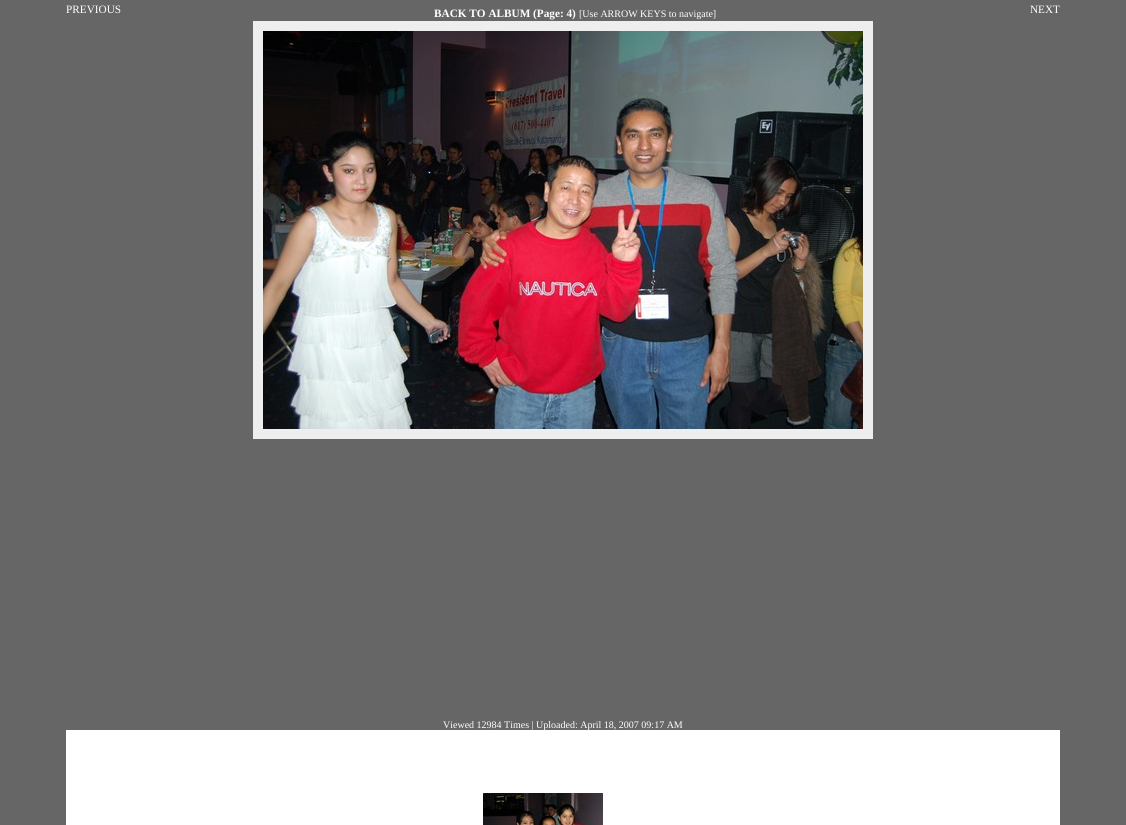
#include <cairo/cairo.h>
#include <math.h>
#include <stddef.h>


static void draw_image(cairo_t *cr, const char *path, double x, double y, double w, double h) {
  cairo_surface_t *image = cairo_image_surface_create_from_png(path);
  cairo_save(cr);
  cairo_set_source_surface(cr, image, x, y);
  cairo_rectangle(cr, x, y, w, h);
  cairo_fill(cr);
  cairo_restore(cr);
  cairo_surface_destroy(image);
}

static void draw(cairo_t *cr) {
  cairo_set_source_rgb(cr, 102 / 255.0, 102 / 255.0, 102 / 255.0);
  cairo_paint(cr);
  cairo_rectangle(cr, 258, 26, 610, 408);
  cairo_set_source_rgb(cr, 238 / 255.0, 238 / 255.0, 238 / 255.0);
  cairo_set_line_width(cr, 10);
  cairo_stroke(cr);
  draw_image(cr, "images/1.png", 263, 31, 600, 398);
  cairo_set_source_rgb(cr, 1, 1, 1);
  cairo_rectangle(cr, 66, 730, 994, 95);
  cairo_fill(cr);
  draw_image(cr, "images/2.png", 483, 793, 120, 32);
  cairo_select_font_face(cr, "Liberation Serif", CAIRO_FONT_SLANT_NORMAL, CAIRO_FONT_WEIGHT_NORMAL);
  cairo_set_font_size(cr, 11.25);
  cairo_move_to(cr, 66, 13);
  cairo_show_text(cr, "PREVIOUS");
  cairo_select_font_face(cr, "Liberation Serif", CAIRO_FONT_SLANT_NORMAL, CAIRO_FONT_WEIGHT_BOLD);
  cairo_move_to(cr, 434, 17);
  cairo_show_text(cr, "BACK TO ALBUM (Page: 4)");
  cairo_select_font_face(cr, "Liberation Serif", CAIRO_FONT_SLANT_NORMAL, CAIRO_FONT_WEIGHT_NORMAL);
  cairo_set_font_size(cr, 10);
  cairo_move_to(cr, 579, 17);
  cairo_show_text(cr, "[Use ARROW KEYS to navigate]");
  cairo_set_font_size(cr, 11.25);
  cairo_move_to(cr, 1030, 13);
  cairo_show_text(cr, "NEXT");
  cairo_set_font_size(cr, 10);
  cairo_move_to(cr, 443, 728);
  cairo_show_text(cr, "Viewed 12984 Times | Uploaded: April 18, 2007 09:17 AM");
}

int main(void) {
  cairo_surface_t *surface = cairo_image_surface_create(CAIRO_FORMAT_RGB24, 1126, 825);
  cairo_t *cr = cairo_create(surface);
  cairo_font_options_t *options = cairo_font_options_create();
  cairo_font_options_set_hint_metrics(options, CAIRO_HINT_METRICS_OFF);
  cairo_font_options_set_hint_style(options, CAIRO_HINT_STYLE_NONE);
  cairo_set_font_options(cr, options);
  cairo_set_miter_limit(cr, 4);
  draw(cr);
  cairo_surface_write_to_png(surface, "out.png");
  cairo_font_options_destroy(options);
  cairo_destroy(cr);
  cairo_surface_destroy(surface);
  return 0;
}
